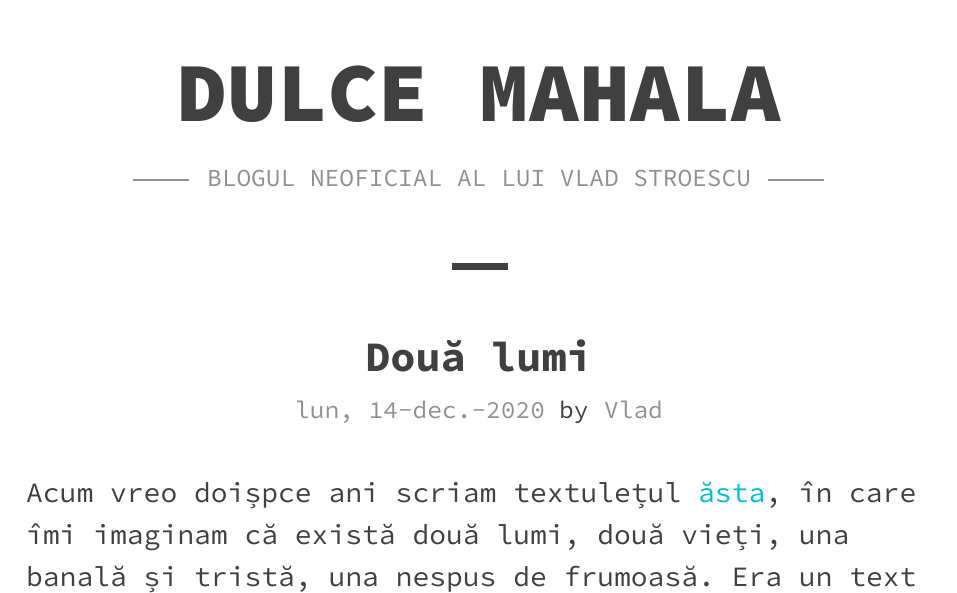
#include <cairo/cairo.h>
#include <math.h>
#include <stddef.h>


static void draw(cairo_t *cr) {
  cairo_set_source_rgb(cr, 1, 1, 1);
  cairo_paint(cr);
  cairo_set_source_rgb(cr, 144 / 255.0, 144 / 255.0, 144 / 255.0);
  cairo_rectangle(cr, 133, 179, 56, 2);
  cairo_fill(cr);
  cairo_rectangle(cr, 768, 179, 56, 2);
  cairo_fill(cr);
  cairo_set_source_rgb(cr, 64 / 255.0, 64 / 255.0, 64 / 255.0);
  cairo_rectangle(cr, 452, 263, 56, 7);
  cairo_fill(cr);
  cairo_select_font_face(cr, "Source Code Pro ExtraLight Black", CAIRO_FONT_SLANT_NORMAL, CAIRO_FONT_WEIGHT_NORMAL);
  cairo_set_font_size(cr, 84);
  cairo_move_to(cr, 176, 121);
  cairo_show_text(cr, "DULCE MAHALA");
  cairo_select_font_face(cr, "Source Code Pro ExtraLight", CAIRO_FONT_SLANT_NORMAL, CAIRO_FONT_WEIGHT_NORMAL);
  cairo_set_font_size(cr, 24.5);
  cairo_set_source_rgb(cr, 144 / 255.0, 144 / 255.0, 144 / 255.0);
  cairo_move_to(cr, 207, 186);
  cairo_show_text(cr, "BLOGUL NEOFICIAL AL LUI VLAD STROESCU");
  cairo_select_font_face(cr, "Source Code Pro ExtraLight", CAIRO_FONT_SLANT_NORMAL, CAIRO_FONT_WEIGHT_BOLD);
  cairo_set_font_size(cr, 42);
  cairo_set_source_rgb(cr, 64 / 255.0, 64 / 255.0, 64 / 255.0);
  cairo_move_to(cr, 365, 371);
  cairo_show_text(cr, "Două lumi");
  cairo_select_font_face(cr, "Source Code Pro ExtraLight", CAIRO_FONT_SLANT_NORMAL, CAIRO_FONT_WEIGHT_NORMAL);
  cairo_set_font_size(cr, 24.5);
  cairo_set_source_rgb(cr, 144 / 255.0, 144 / 255.0, 144 / 255.0);
  cairo_move_to(cr, 295, 418);
  cairo_show_text(cr, "lun, 14-dec.-2020");
  cairo_set_source_rgb(cr, 64 / 255.0, 64 / 255.0, 64 / 255.0);
  cairo_move_to(cr, 559, 418);
  cairo_show_text(cr, "by");
  cairo_set_source_rgb(cr, 144 / 255.0, 144 / 255.0, 144 / 255.0);
  cairo_move_to(cr, 604, 418);
  cairo_show_text(cr, "Vlad");
  cairo_set_font_size(cr, 28);
  cairo_set_source_rgb(cr, 64 / 255.0, 64 / 255.0, 64 / 255.0);
  cairo_move_to(cr, 26, 502);
  cairo_show_text(cr, "Acum vreo doișpce ani scriam textulețul");
  cairo_set_source_rgb(cr, 0, 188 / 255.0, 212 / 255.0);
  cairo_move_to(cr, 698, 502);
  cairo_show_text(cr, "ăsta");
  cairo_set_source_rgb(cr, 64 / 255.0, 64 / 255.0, 64 / 255.0);
  cairo_move_to(cr, 765, 502);
  cairo_show_text(cr, ", în care");
  cairo_move_to(cr, 26, 544);
  cairo_show_text(cr, "îmi imaginam că există două lumi, două vieți, una");
  cairo_move_to(cr, 26, 586);
  cairo_show_text(cr, "banală și tristă, una nespus de frumoasă. Era un text");
}

int main(void) {
  cairo_surface_t *surface = cairo_image_surface_create(CAIRO_FORMAT_RGB24, 957, 593);
  cairo_t *cr = cairo_create(surface);
  cairo_font_options_t *options = cairo_font_options_create();
  cairo_font_options_set_hint_metrics(options, CAIRO_HINT_METRICS_OFF);
  cairo_font_options_set_hint_style(options, CAIRO_HINT_STYLE_NONE);
  cairo_set_font_options(cr, options);
  cairo_set_miter_limit(cr, 4);
  draw(cr);
  cairo_surface_write_to_png(surface, "out.png");
  cairo_font_options_destroy(options);
  cairo_destroy(cr);
  cairo_surface_destroy(surface);
  return 0;
}
